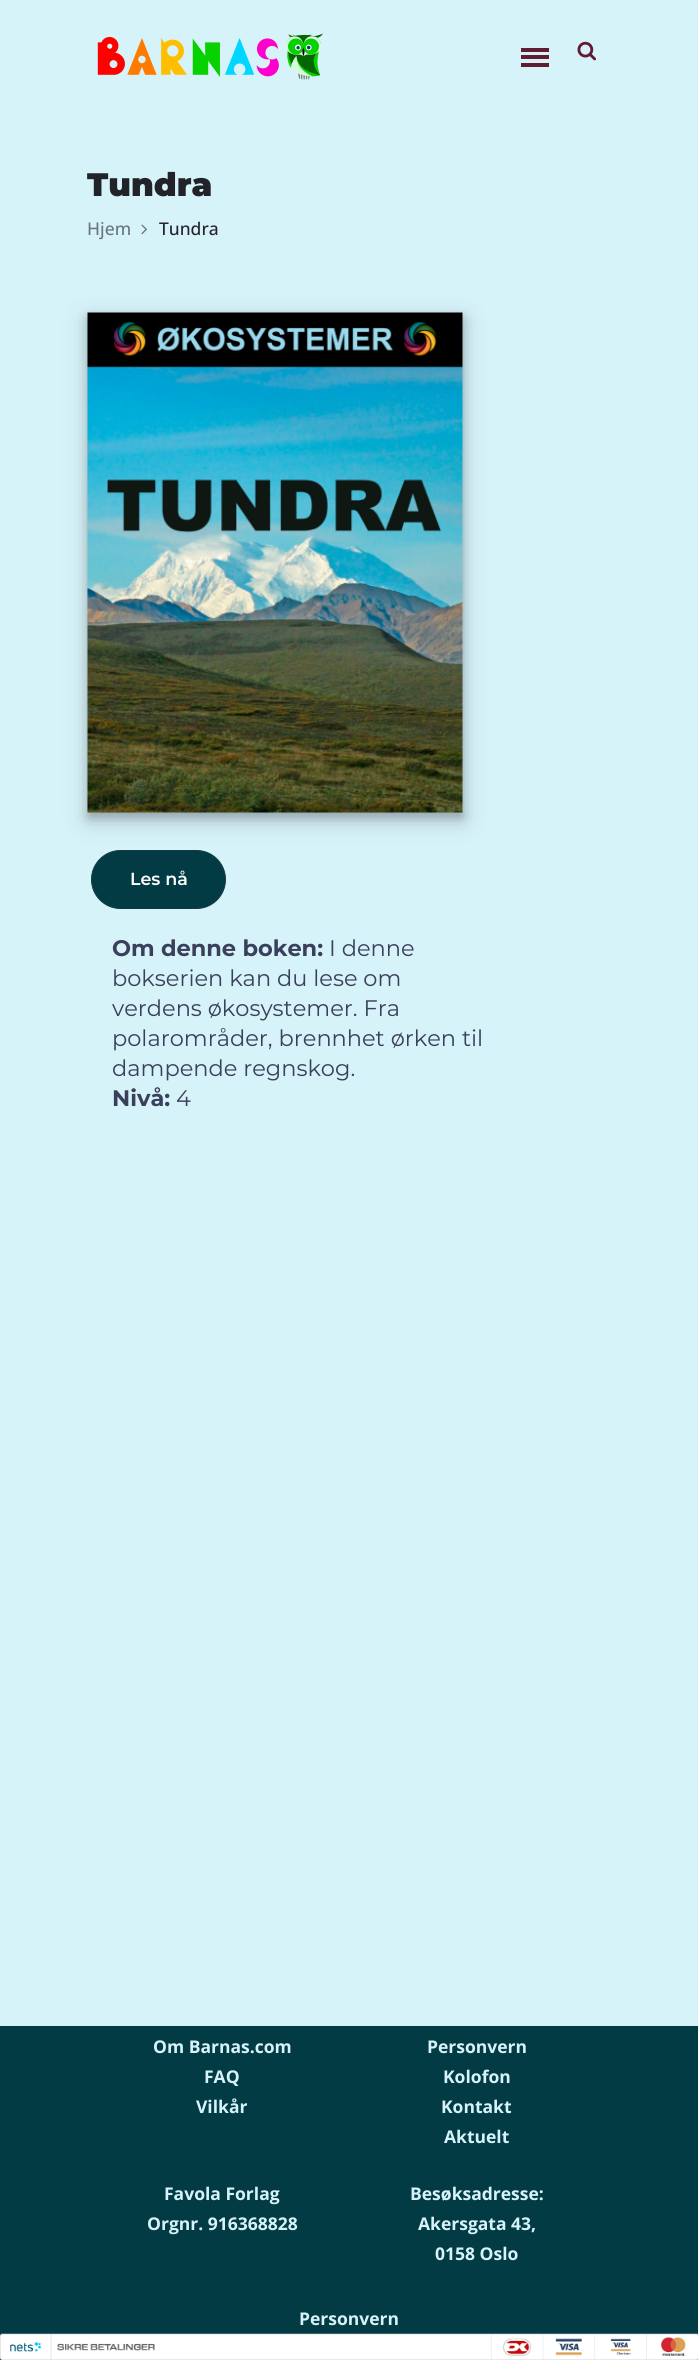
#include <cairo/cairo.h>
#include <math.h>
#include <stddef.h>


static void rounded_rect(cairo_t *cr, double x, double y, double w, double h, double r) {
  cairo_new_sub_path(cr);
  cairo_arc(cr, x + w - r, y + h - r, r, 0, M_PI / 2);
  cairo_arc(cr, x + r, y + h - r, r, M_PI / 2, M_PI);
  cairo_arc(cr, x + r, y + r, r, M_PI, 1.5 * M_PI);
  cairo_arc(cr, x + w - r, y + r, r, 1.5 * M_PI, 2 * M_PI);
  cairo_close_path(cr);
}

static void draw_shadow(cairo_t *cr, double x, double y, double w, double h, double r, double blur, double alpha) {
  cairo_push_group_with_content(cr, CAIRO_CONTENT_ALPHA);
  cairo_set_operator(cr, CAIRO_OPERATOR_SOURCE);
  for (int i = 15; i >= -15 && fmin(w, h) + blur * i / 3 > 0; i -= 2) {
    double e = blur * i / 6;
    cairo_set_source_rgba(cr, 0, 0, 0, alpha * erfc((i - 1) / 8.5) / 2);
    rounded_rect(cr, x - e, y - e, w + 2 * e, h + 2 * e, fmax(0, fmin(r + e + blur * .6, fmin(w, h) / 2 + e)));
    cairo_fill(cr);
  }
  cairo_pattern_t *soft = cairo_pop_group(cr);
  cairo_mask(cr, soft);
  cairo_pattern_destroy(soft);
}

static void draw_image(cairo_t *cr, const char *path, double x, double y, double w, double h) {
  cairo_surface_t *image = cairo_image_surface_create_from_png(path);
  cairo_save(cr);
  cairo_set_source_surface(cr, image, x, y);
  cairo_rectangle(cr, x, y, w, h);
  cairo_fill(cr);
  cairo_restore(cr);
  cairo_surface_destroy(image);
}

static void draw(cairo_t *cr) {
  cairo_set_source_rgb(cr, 215 / 255.0, 243 / 255.0, 250 / 255.0);
  cairo_paint(cr);
  draw_image(cr, "images/1.png", 97, 33, 226, 47);
  cairo_set_source_rgb(cr, 97 / 255.0, 28 / 255.0, 50 / 255.0);
  cairo_rectangle(cr, 521, 55, 28, 4);
  cairo_fill(cr);
  cairo_rectangle(cr, 521, 48, 28, 4);
  cairo_fill(cr);
  cairo_rectangle(cr, 521, 63, 28, 4);
  cairo_fill(cr);
  draw_image(cr, "images/2.png", 577, 41, 19, 20);
  draw_image(cr, "images/3.png", 141, 224, 6, 11);
  cairo_set_source_rgb(cr, 0, 0, 0);
  draw_shadow(cr, 88, 320, 375, 500, 0, 12.5, 0.19);
  draw_shadow(cr, 88, 318, 375, 500, 0, 5, 0.2);
  draw_image(cr, "images/4.png", 87, 312, 376, 501);
  cairo_set_source_rgb(cr, 3 / 255.0, 59 / 255.0, 69 / 255.0);
  rounded_rect(cr, 91.5, 850.5, 134, 58, 29);
  cairo_fill_preserve(cr);
  cairo_set_source_rgb(cr, 19 / 255.0, 59 / 255.0, 69 / 255.0);
  cairo_set_line_width(cr, 1);
  cairo_stroke(cr);
  cairo_set_source_rgb(cr, 3 / 255.0, 59 / 255.0, 69 / 255.0);
  cairo_rectangle(cr, 0, 2026, 698, 334);
  cairo_fill(cr);
  draw_image(cr, "images/5.png", 0, 2333, 698, 27);
  cairo_select_font_face(cr, "Montserrat Black", CAIRO_FONT_SLANT_NORMAL, CAIRO_FONT_WEIGHT_NORMAL);
  cairo_set_font_size(cr, 32.5);
  cairo_set_source_rgb(cr, 34 / 255.0, 35 / 255.0, 40 / 255.0);
  cairo_move_to(cr, 87, 196);
  cairo_show_text(cr, "Tundra");
  cairo_select_font_face(cr, "Open Sans Medium", CAIRO_FONT_SLANT_NORMAL, CAIRO_FONT_WEIGHT_NORMAL);
  cairo_set_font_size(cr, 17.5);
  cairo_set_source_rgb(cr, 106 / 255.0, 118 / 255.0, 124 / 255.0);
  cairo_move_to(cr, 87, 235);
  cairo_show_text(cr, "Hjem");
  cairo_set_source_rgb(cr, 34 / 255.0, 35 / 255.0, 40 / 255.0);
  cairo_move_to(cr, 159, 235);
  cairo_show_text(cr, "Tundra");
  cairo_select_font_face(cr, "Montserrat SemiBold", CAIRO_FONT_SLANT_NORMAL, CAIRO_FONT_WEIGHT_NORMAL);
  cairo_set_source_rgb(cr, 1, 1, 1);
  cairo_move_to(cr, 130, 885);
  cairo_show_text(cr, "Les nå");
  cairo_select_font_face(cr, "Montserrat", CAIRO_FONT_SLANT_NORMAL, CAIRO_FONT_WEIGHT_BOLD);
  cairo_set_font_size(cr, 22.5);
  cairo_set_source_rgb(cr, 58 / 255.0, 64 / 255.0, 91 / 255.0);
  cairo_move_to(cr, 112, 956);
  cairo_show_text(cr, "Om denne boken:");
  cairo_select_font_face(cr, "Montserrat", CAIRO_FONT_SLANT_NORMAL, CAIRO_FONT_WEIGHT_NORMAL);
  cairo_move_to(cr, 329, 956);
  cairo_show_text(cr, "I denne");
  cairo_move_to(cr, 112, 986);
  cairo_show_text(cr, "bokserien kan du lese om");
  cairo_move_to(cr, 112, 1016);
  cairo_show_text(cr, "verdens økosystemer. Fra");
  cairo_move_to(cr, 112, 1046);
  cairo_show_text(cr, "polarområder, brennhet ørken til");
  cairo_move_to(cr, 112, 1076);
  cairo_show_text(cr, "dampende regnskog.");
  cairo_select_font_face(cr, "Montserrat", CAIRO_FONT_SLANT_NORMAL, CAIRO_FONT_WEIGHT_BOLD);
  cairo_move_to(cr, 112, 1106);
  cairo_show_text(cr, "Nivå:");
  cairo_select_font_face(cr, "Montserrat", CAIRO_FONT_SLANT_NORMAL, CAIRO_FONT_WEIGHT_NORMAL);
  cairo_move_to(cr, 176, 1106);
  cairo_show_text(cr, "4");
  cairo_select_font_face(cr, "Open Sans", CAIRO_FONT_SLANT_NORMAL, CAIRO_FONT_WEIGHT_BOLD);
  cairo_set_font_size(cr, 17.5);
  cairo_set_source_rgb(cr, 215 / 255.0, 243 / 255.0, 250 / 255.0);
  cairo_move_to(cr, 153, 2053);
  cairo_show_text(cr, "Om Barnas.com");
  cairo_move_to(cr, 204, 2083);
  cairo_show_text(cr, "FAQ");
  cairo_move_to(cr, 196, 2113);
  cairo_show_text(cr, "Vilkår");
  cairo_move_to(cr, 427, 2053);
  cairo_show_text(cr, "Personvern");
  cairo_move_to(cr, 443, 2083);
  cairo_show_text(cr, "Kolofon");
  cairo_move_to(cr, 441, 2113);
  cairo_show_text(cr, "Kontakt");
  cairo_move_to(cr, 444, 2143);
  cairo_show_text(cr, "Aktuelt");
  cairo_move_to(cr, 164, 2200);
  cairo_show_text(cr, "Favola Forlag");
  cairo_move_to(cr, 147, 2230);
  cairo_show_text(cr, "Orgnr. 916368828");
  cairo_move_to(cr, 410, 2200);
  cairo_show_text(cr, "Besøksadresse:");
  cairo_move_to(cr, 418, 2230);
  cairo_show_text(cr, "Akersgata 43,");
  cairo_move_to(cr, 435, 2260);
  cairo_show_text(cr, "0158 Oslo");
  cairo_move_to(cr, 299, 2325);
  cairo_show_text(cr, "Personvern");
}

int main(void) {
  cairo_surface_t *surface = cairo_image_surface_create(CAIRO_FORMAT_RGB24, 698, 2360);
  cairo_t *cr = cairo_create(surface);
  cairo_font_options_t *options = cairo_font_options_create();
  cairo_font_options_set_hint_metrics(options, CAIRO_HINT_METRICS_OFF);
  cairo_font_options_set_hint_style(options, CAIRO_HINT_STYLE_NONE);
  cairo_set_font_options(cr, options);
  cairo_set_miter_limit(cr, 4);
  draw(cr);
  cairo_surface_write_to_png(surface, "out.png");
  cairo_font_options_destroy(options);
  cairo_destroy(cr);
  cairo_surface_destroy(surface);
  return 0;
}
